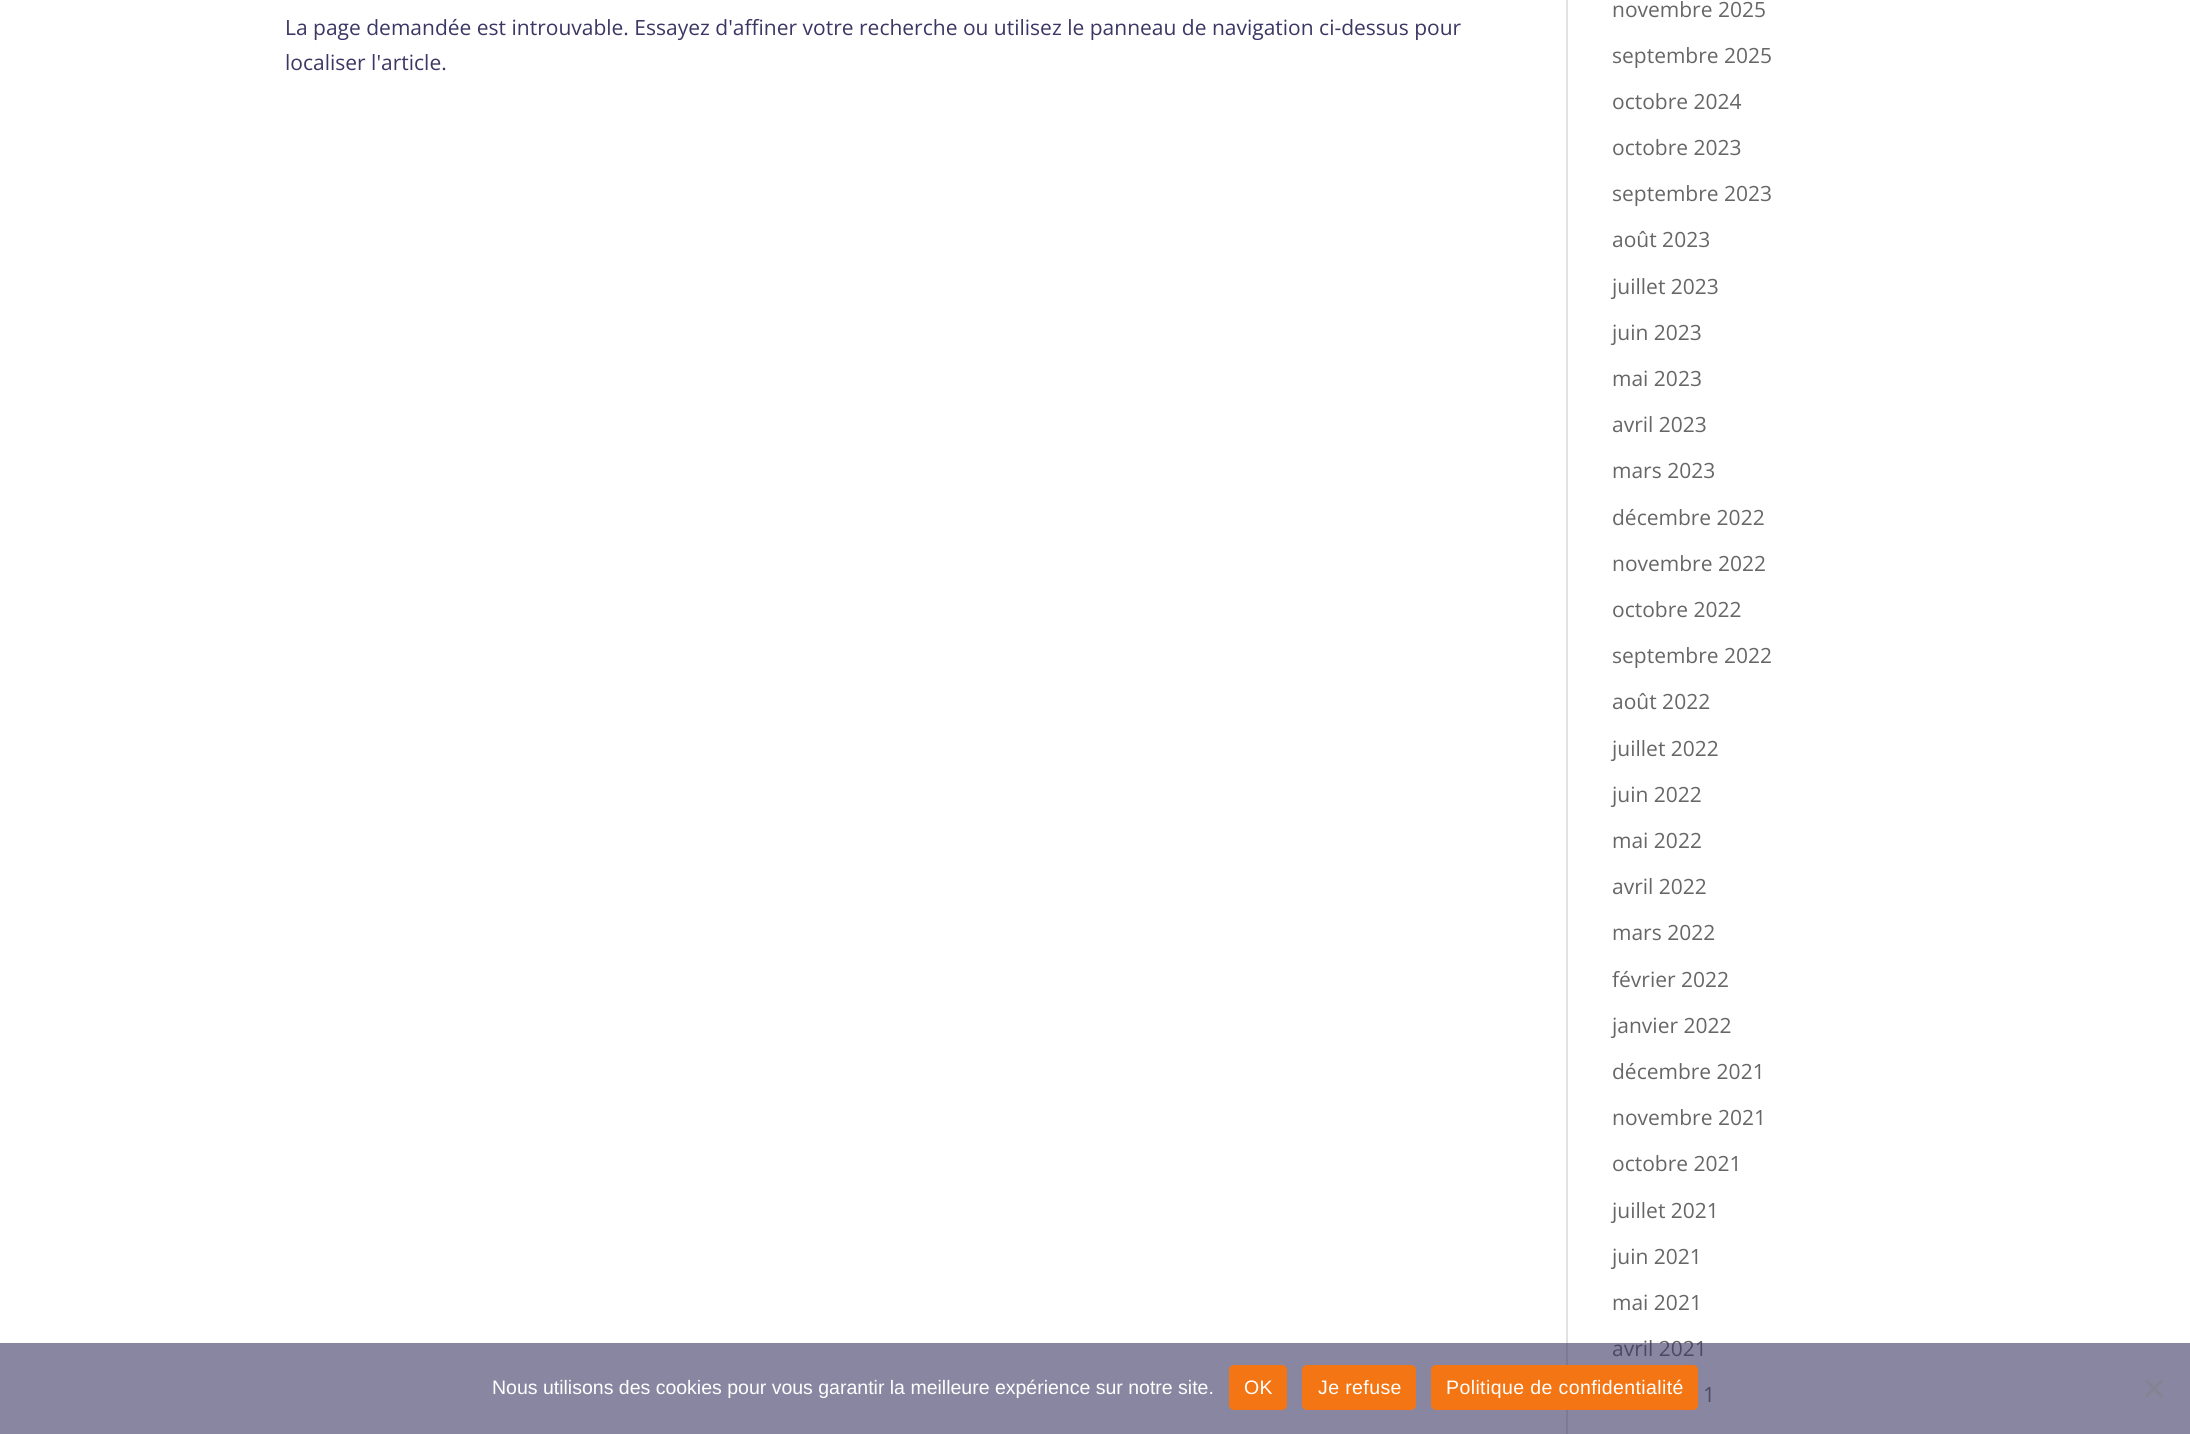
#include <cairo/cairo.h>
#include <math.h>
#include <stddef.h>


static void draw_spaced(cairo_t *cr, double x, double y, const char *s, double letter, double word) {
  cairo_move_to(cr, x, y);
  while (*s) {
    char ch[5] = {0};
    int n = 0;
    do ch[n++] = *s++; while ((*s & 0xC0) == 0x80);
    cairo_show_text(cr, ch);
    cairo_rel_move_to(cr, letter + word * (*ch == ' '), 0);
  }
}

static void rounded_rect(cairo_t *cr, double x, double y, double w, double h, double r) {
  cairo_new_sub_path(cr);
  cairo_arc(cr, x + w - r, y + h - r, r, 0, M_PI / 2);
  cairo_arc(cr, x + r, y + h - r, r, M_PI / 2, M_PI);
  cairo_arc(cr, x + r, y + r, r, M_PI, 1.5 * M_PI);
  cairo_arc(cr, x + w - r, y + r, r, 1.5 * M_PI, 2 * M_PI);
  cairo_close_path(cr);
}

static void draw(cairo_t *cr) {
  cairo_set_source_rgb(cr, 1, 1, 1);
  cairo_paint(cr);
  cairo_set_source_rgb(cr, 226 / 255.0, 226 / 255.0, 226 / 255.0);
  cairo_rectangle(cr, 1566, 0, 2, 1434);
  cairo_fill(cr);
  cairo_select_font_face(cr, "Open Sans", CAIRO_FONT_SLANT_NORMAL, CAIRO_FONT_WEIGHT_NORMAL);
  cairo_set_font_size(cr, 21);
  cairo_set_source_rgb(cr, 59 / 255.0, 54 / 255.0, 99 / 255.0);
  cairo_move_to(cr, 285, 35);
  cairo_show_text(cr, "La page demandée est introuvable. Essayez d'affiner votre recherche ou utilisez le panneau de navigation ci-dessus pour");
  cairo_move_to(cr, 285, 70);
  cairo_show_text(cr, "localiser l'article.");
  cairo_set_source_rgb(cr, 102 / 255.0, 102 / 255.0, 102 / 255.0);
  cairo_move_to(cr, 1612, 17);
  cairo_show_text(cr, "novembre 2025");
  cairo_move_to(cr, 1612, 63);
  cairo_show_text(cr, "septembre 2025");
  cairo_move_to(cr, 1612, 109);
  cairo_show_text(cr, "octobre 2024");
  cairo_move_to(cr, 1612, 155);
  cairo_show_text(cr, "octobre 2023");
  cairo_move_to(cr, 1612, 201);
  cairo_show_text(cr, "septembre 2023");
  cairo_move_to(cr, 1612, 247);
  cairo_show_text(cr, "août 2023");
  cairo_move_to(cr, 1612, 294);
  cairo_show_text(cr, "juillet 2023");
  cairo_move_to(cr, 1612, 340);
  cairo_show_text(cr, "juin 2023");
  cairo_move_to(cr, 1612, 386);
  cairo_show_text(cr, "mai 2023");
  cairo_move_to(cr, 1612, 432);
  cairo_show_text(cr, "avril 2023");
  cairo_move_to(cr, 1612, 478);
  cairo_show_text(cr, "mars 2023");
  cairo_move_to(cr, 1612, 525);
  cairo_show_text(cr, "décembre 2022");
  cairo_move_to(cr, 1612, 571);
  cairo_show_text(cr, "novembre 2022");
  cairo_move_to(cr, 1612, 617);
  cairo_show_text(cr, "octobre 2022");
  cairo_move_to(cr, 1612, 663);
  cairo_show_text(cr, "septembre 2022");
  cairo_move_to(cr, 1612, 709);
  cairo_show_text(cr, "août 2022");
  cairo_move_to(cr, 1612, 756);
  cairo_show_text(cr, "juillet 2022");
  cairo_move_to(cr, 1612, 802);
  cairo_show_text(cr, "juin 2022");
  cairo_move_to(cr, 1612, 848);
  cairo_show_text(cr, "mai 2022");
  cairo_move_to(cr, 1612, 894);
  cairo_show_text(cr, "avril 2022");
  cairo_move_to(cr, 1612, 940);
  cairo_show_text(cr, "mars 2022");
  cairo_move_to(cr, 1612, 987);
  cairo_show_text(cr, "février 2022");
  cairo_move_to(cr, 1612, 1033);
  cairo_show_text(cr, "janvier 2022");
  cairo_move_to(cr, 1612, 1079);
  cairo_show_text(cr, "décembre 2021");
  cairo_move_to(cr, 1612, 1125);
  cairo_show_text(cr, "novembre 2021");
  cairo_move_to(cr, 1612, 1171);
  cairo_show_text(cr, "octobre 2021");
  cairo_move_to(cr, 1612, 1218);
  cairo_show_text(cr, "juillet 2021");
  cairo_move_to(cr, 1612, 1264);
  cairo_show_text(cr, "juin 2021");
  cairo_move_to(cr, 1612, 1310);
  cairo_show_text(cr, "mai 2021");
  cairo_move_to(cr, 1612, 1356);
  cairo_show_text(cr, "avril 2021");
  cairo_move_to(cr, 1703, 1402);
  cairo_show_text(cr, "1");
  cairo_set_source_rgba(cr, 59 / 255.0, 54 / 255.0, 99 / 255.0, 0.6);
  cairo_rectangle(cr, 0, 1343, 2190, 91);
  cairo_fill(cr);
  cairo_select_font_face(cr, "Liberation Sans", CAIRO_FONT_SLANT_NORMAL, CAIRO_FONT_WEIGHT_NORMAL);
  cairo_set_font_size(cr, 19.5);
  cairo_set_source_rgb(cr, 1, 1, 1);
  cairo_move_to(cr, 492, 1394);
  cairo_show_text(cr, "Nous utilisons des cookies pour vous garantir la meilleure expérience sur notre site.");
  cairo_set_source_rgb(cr, 244 / 255.0, 117 / 255.0, 20 / 255.0);
  rounded_rect(cr, 1229, 1365, 58, 45, 5);
  cairo_fill(cr);
  cairo_set_source_rgb(cr, 1, 1, 1);
  draw_spaced(cr, 1244, 1394, "OK", 0.4, 0);
  cairo_set_source_rgb(cr, 244 / 255.0, 117 / 255.0, 20 / 255.0);
  rounded_rect(cr, 1302, 1365, 114, 45, 5);
  cairo_fill(cr);
  cairo_set_source_rgb(cr, 1, 1, 1);
  draw_spaced(cr, 1318, 1394, "Je refuse", 0.4, 0);
  cairo_set_source_rgb(cr, 244 / 255.0, 117 / 255.0, 20 / 255.0);
  rounded_rect(cr, 1431, 1365, 267, 45, 5);
  cairo_fill(cr);
  cairo_set_source_rgb(cr, 1, 1, 1);
  draw_spaced(cr, 1446, 1394, "Politique de confidentialité", 0.4, 0);
  cairo_set_source_rgb(cr, 133 / 255.0, 131 / 255.0, 145 / 255.0);
  cairo_new_path(cr);
  cairo_move_to(cr, 2161, 1379.5);
  cairo_line_to(cr, 2163, 1381.5);
  cairo_line_to(cr, 2147, 1397.5);
  cairo_line_to(cr, 2145, 1395.5);
  cairo_close_path(cr);
  cairo_fill(cr);
  cairo_new_path(cr);
  cairo_move_to(cr, 2145, 1381.5);
  cairo_line_to(cr, 2147, 1379.5);
  cairo_line_to(cr, 2163, 1395.5);
  cairo_line_to(cr, 2161, 1397.5);
  cairo_close_path(cr);
  cairo_fill(cr);
}

int main(void) {
  cairo_surface_t *surface = cairo_image_surface_create(CAIRO_FORMAT_RGB24, 2190, 1434);
  cairo_t *cr = cairo_create(surface);
  cairo_font_options_t *options = cairo_font_options_create();
  cairo_font_options_set_hint_metrics(options, CAIRO_HINT_METRICS_OFF);
  cairo_font_options_set_hint_style(options, CAIRO_HINT_STYLE_NONE);
  cairo_set_font_options(cr, options);
  cairo_set_miter_limit(cr, 4);
  draw(cr);
  cairo_surface_write_to_png(surface, "out.png");
  cairo_font_options_destroy(options);
  cairo_destroy(cr);
  cairo_surface_destroy(surface);
  return 0;
}
